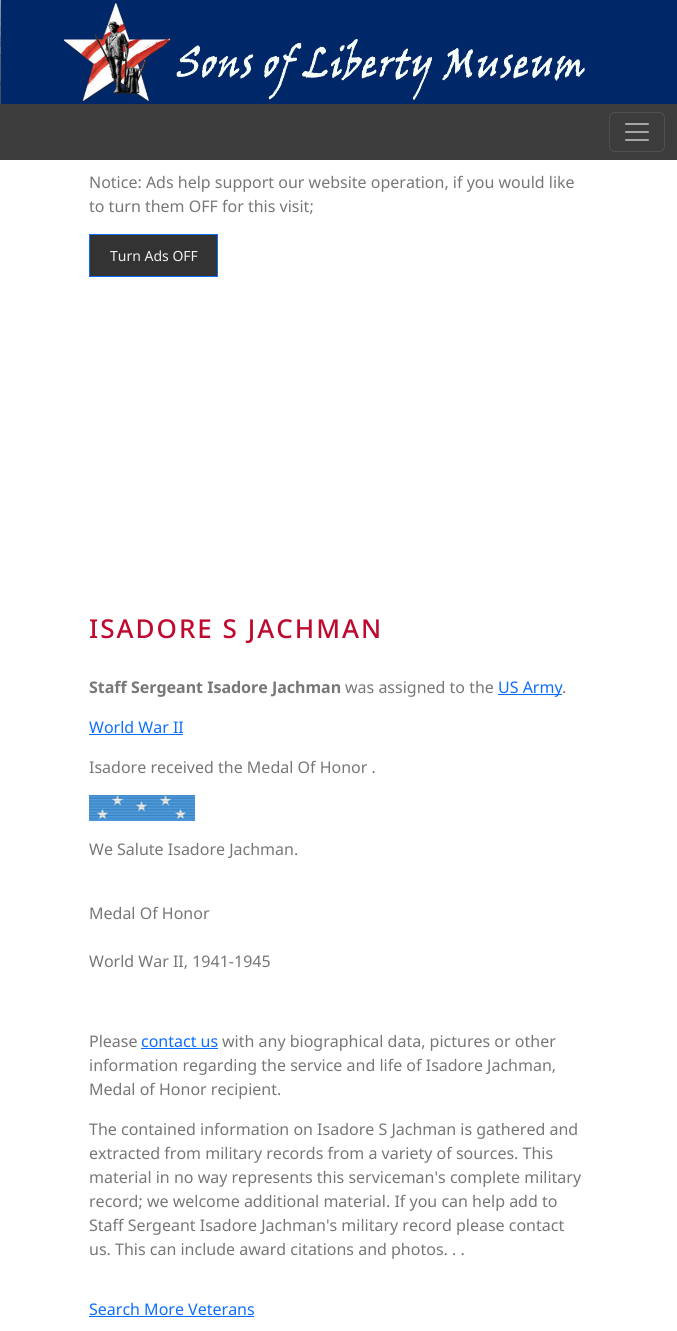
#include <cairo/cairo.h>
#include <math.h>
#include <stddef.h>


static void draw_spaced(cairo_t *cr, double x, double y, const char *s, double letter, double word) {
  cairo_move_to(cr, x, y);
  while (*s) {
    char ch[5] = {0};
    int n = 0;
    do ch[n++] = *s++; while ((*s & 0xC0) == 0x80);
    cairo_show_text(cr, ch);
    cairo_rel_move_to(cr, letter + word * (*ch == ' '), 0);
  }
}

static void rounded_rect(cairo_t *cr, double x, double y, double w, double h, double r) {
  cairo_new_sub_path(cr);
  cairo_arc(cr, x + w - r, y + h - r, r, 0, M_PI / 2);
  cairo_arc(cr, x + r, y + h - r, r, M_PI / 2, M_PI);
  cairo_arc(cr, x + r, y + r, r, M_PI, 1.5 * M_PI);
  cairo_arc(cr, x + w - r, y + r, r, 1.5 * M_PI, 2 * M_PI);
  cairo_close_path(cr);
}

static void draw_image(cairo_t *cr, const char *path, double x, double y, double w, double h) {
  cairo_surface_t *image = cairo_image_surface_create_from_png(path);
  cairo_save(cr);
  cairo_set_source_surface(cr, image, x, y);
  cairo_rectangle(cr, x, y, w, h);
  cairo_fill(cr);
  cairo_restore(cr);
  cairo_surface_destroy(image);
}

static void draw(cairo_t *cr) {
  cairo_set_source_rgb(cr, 1, 1, 1);
  cairo_paint(cr);
  draw_image(cr, "images/1.png", 0, 0, 677, 104);
  cairo_set_source_rgb(cr, 60 / 255.0, 60 / 255.0, 60 / 255.0);
  cairo_rectangle(cr, 0, 104, 677, 56);
  cairo_fill(cr);
  rounded_rect(cr, 609.5, 112.5, 55, 39, 5.5);
  cairo_set_source_rgb(cr, 80 / 255.0, 80 / 255.0, 80 / 255.0);
  cairo_set_line_width(cr, 1);
  cairo_stroke(cr);
  draw_image(cr, "images/2.png", 625, 123, 24, 18);
  cairo_set_source_rgb(cr, 51 / 255.0, 51 / 255.0, 51 / 255.0);
  cairo_rectangle(cr, 89.5, 234.5, 128, 42);
  cairo_fill_preserve(cr);
  cairo_set_source_rgb(cr, 13 / 255.0, 110 / 255.0, 253 / 255.0);
  cairo_stroke(cr);
  cairo_rectangle(cr, 498, 694, 64, 1);
  cairo_fill(cr);
  cairo_rectangle(cr, 89, 734, 94, 1);
  cairo_fill(cr);
  draw_image(cr, "images/3.png", 89, 795, 106, 26);
  cairo_rectangle(cr, 141, 1048, 77, 1);
  cairo_fill(cr);
  cairo_rectangle(cr, 89, 1316, 165, 1);
  cairo_fill(cr);
  cairo_select_font_face(cr, "Noto Sans", CAIRO_FONT_SLANT_NORMAL, CAIRO_FONT_WEIGHT_NORMAL);
  cairo_set_font_size(cr, 16);
  cairo_set_source_rgb(cr, 119 / 255.0, 119 / 255.0, 119 / 255.0);
  cairo_move_to(cr, 89, 188);
  cairo_show_text(cr, "Notice: Ads help support our website operation, if you would like");
  cairo_move_to(cr, 89, 212);
  cairo_show_text(cr, "to turn them OFF for this visit;");
  cairo_set_font_size(cr, 14);
  cairo_set_source_rgb(cr, 241 / 255.0, 241 / 255.0, 241 / 255.0);
  cairo_move_to(cr, 110, 261);
  cairo_show_text(cr, "Turn Ads OFF");
  cairo_select_font_face(cr, "Noto Sans Medium", CAIRO_FONT_SLANT_NORMAL, CAIRO_FONT_WEIGHT_NORMAL);
  cairo_set_font_size(cr, 26);
  cairo_set_source_rgb(cr, 191 / 255.0, 10 / 255.0, 48 / 255.0);
  draw_spaced(cr, 89, 638, "ISADORE S JACHMAN", 2, 0);
  cairo_select_font_face(cr, "Noto Sans", CAIRO_FONT_SLANT_NORMAL, CAIRO_FONT_WEIGHT_BOLD);
  cairo_set_font_size(cr, 16);
  cairo_set_source_rgb(cr, 119 / 255.0, 119 / 255.0, 119 / 255.0);
  cairo_move_to(cr, 89, 693);
  cairo_show_text(cr, "Staff Sergeant Isadore Jachman");
  cairo_select_font_face(cr, "Noto Sans", CAIRO_FONT_SLANT_NORMAL, CAIRO_FONT_WEIGHT_NORMAL);
  cairo_move_to(cr, 345, 693);
  cairo_show_text(cr, "was assigned to the");
  cairo_set_source_rgb(cr, 13 / 255.0, 110 / 255.0, 253 / 255.0);
  cairo_move_to(cr, 498, 693);
  cairo_show_text(cr, "US Army");
  cairo_set_source_rgb(cr, 119 / 255.0, 119 / 255.0, 119 / 255.0);
  cairo_move_to(cr, 562, 693);
  cairo_show_text(cr, ".");
  cairo_set_source_rgb(cr, 13 / 255.0, 110 / 255.0, 253 / 255.0);
  cairo_move_to(cr, 89, 733);
  cairo_show_text(cr, "World War II");
  cairo_set_source_rgb(cr, 119 / 255.0, 119 / 255.0, 119 / 255.0);
  cairo_move_to(cr, 89, 773);
  cairo_show_text(cr, "Isadore received the Medal Of Honor .");
  cairo_move_to(cr, 89, 855);
  cairo_show_text(cr, "We Salute Isadore Jachman.");
  cairo_move_to(cr, 89, 919);
  cairo_show_text(cr, "Medal Of Honor");
  cairo_move_to(cr, 89, 967);
  cairo_show_text(cr, "World War II, 1941-1945");
  cairo_move_to(cr, 89, 1047);
  cairo_show_text(cr, "Please");
  cairo_set_source_rgb(cr, 13 / 255.0, 110 / 255.0, 253 / 255.0);
  cairo_move_to(cr, 141, 1047);
  cairo_show_text(cr, "contact us");
  cairo_set_source_rgb(cr, 119 / 255.0, 119 / 255.0, 119 / 255.0);
  cairo_move_to(cr, 222, 1047);
  cairo_show_text(cr, "with any biographical data, pictures or other");
  cairo_move_to(cr, 89, 1071);
  cairo_show_text(cr, "information regarding the service and life of Isadore Jachman,");
  cairo_move_to(cr, 89, 1095);
  cairo_show_text(cr, "Medal of Honor recipient.");
  cairo_move_to(cr, 89, 1135);
  cairo_show_text(cr, "The contained information on Isadore S Jachman is gathered and");
  cairo_move_to(cr, 89, 1159);
  cairo_show_text(cr, "extracted from military records from a variety of sources. This");
  cairo_move_to(cr, 89, 1183);
  cairo_show_text(cr, "material in no way represents this serviceman's complete military");
  cairo_move_to(cr, 89, 1207);
  cairo_show_text(cr, "record; we welcome additional material. If you can help add to");
  cairo_move_to(cr, 89, 1231);
  cairo_show_text(cr, "Staff Sergeant Isadore Jachman's military record please contact");
  cairo_move_to(cr, 89, 1255);
  cairo_show_text(cr, "us. This can include award citations and photos. . .");
  cairo_set_source_rgb(cr, 13 / 255.0, 110 / 255.0, 253 / 255.0);
  cairo_move_to(cr, 89, 1315);
  cairo_show_text(cr, "Search More Veterans");
}

int main(void) {
  cairo_surface_t *surface = cairo_image_surface_create(CAIRO_FORMAT_RGB24, 677, 1331);
  cairo_t *cr = cairo_create(surface);
  cairo_font_options_t *options = cairo_font_options_create();
  cairo_font_options_set_hint_metrics(options, CAIRO_HINT_METRICS_OFF);
  cairo_font_options_set_hint_style(options, CAIRO_HINT_STYLE_NONE);
  cairo_set_font_options(cr, options);
  cairo_set_miter_limit(cr, 4);
  draw(cr);
  cairo_surface_write_to_png(surface, "out.png");
  cairo_font_options_destroy(options);
  cairo_destroy(cr);
  cairo_surface_destroy(surface);
  return 0;
}
